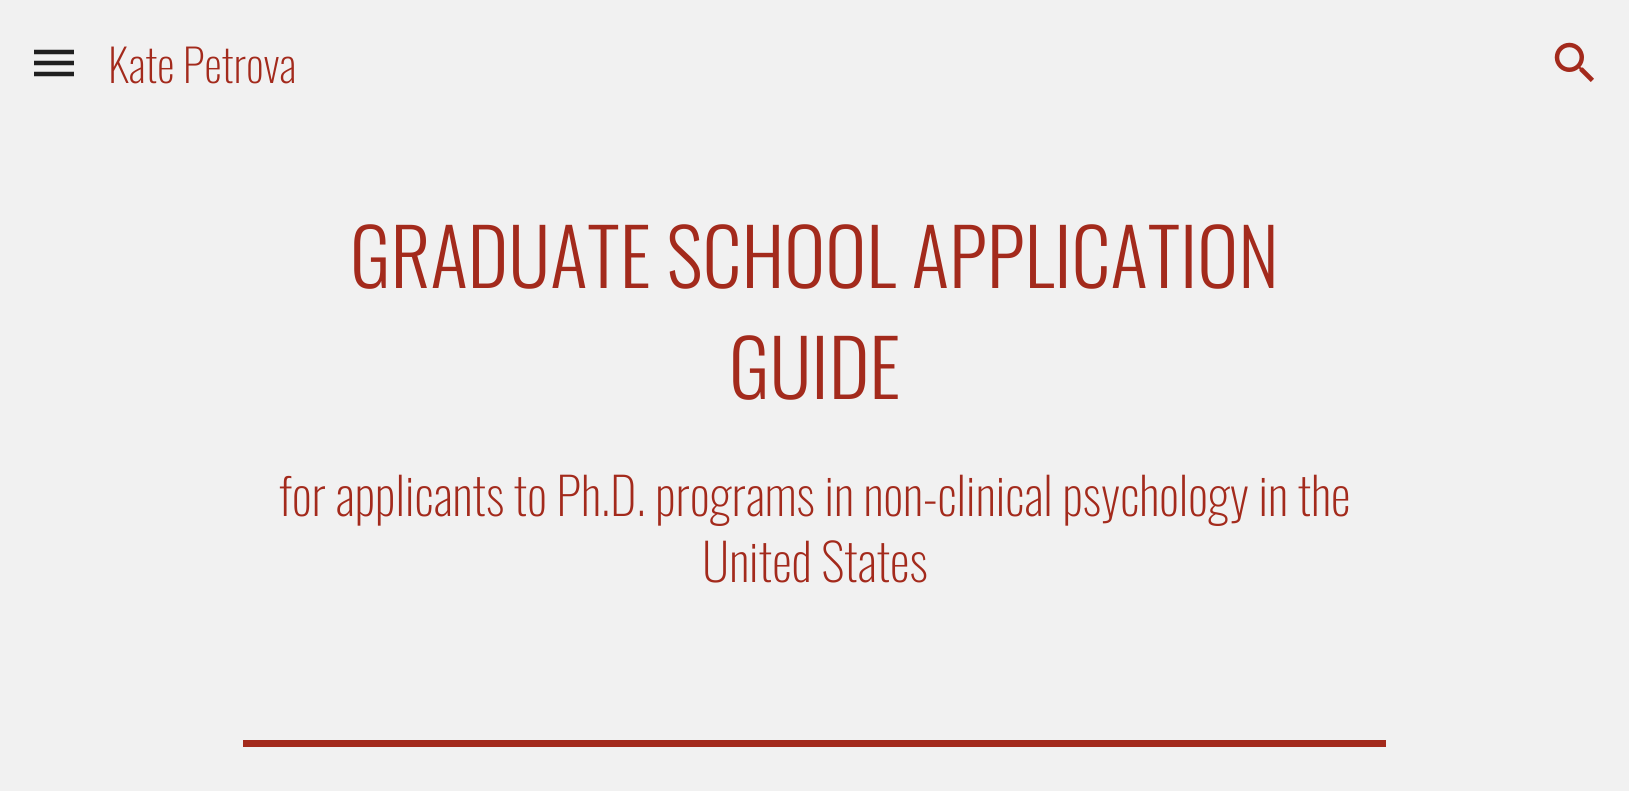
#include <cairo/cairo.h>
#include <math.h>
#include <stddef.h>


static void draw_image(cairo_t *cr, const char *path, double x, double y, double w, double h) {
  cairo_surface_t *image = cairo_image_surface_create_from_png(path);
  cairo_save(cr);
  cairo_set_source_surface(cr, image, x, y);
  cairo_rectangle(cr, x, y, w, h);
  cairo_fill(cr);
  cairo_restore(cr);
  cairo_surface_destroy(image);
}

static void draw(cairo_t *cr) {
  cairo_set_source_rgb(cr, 241 / 255.0, 241 / 255.0, 241 / 255.0);
  cairo_paint(cr);
  cairo_new_path(cr);
  cairo_move_to(cr, 34, 52);
  cairo_line_to(cr, 74, 52);
  cairo_move_to(cr, 34, 63);
  cairo_line_to(cr, 74, 63);
  cairo_move_to(cr, 34, 74);
  cairo_line_to(cr, 74, 74);
  cairo_set_source_rgb(cr, 31 / 255.0, 31 / 255.0, 31 / 255.0);
  cairo_set_line_width(cr, 4.5);
  cairo_stroke(cr);
  draw_image(cr, "images/1.png", 1554, 42, 40, 40);
  cairo_set_source_rgb(cr, 163 / 255.0, 42 / 255.0, 28 / 255.0);
  cairo_rectangle(cr, 243, 740, 1143, 7);
  cairo_fill(cr);
  cairo_select_font_face(cr, "Oswald ExtraLight", CAIRO_FONT_SLANT_NORMAL, CAIRO_FONT_WEIGHT_NORMAL);
  cairo_set_font_size(cr, 45);
  cairo_move_to(cr, 108, 83);
  cairo_show_text(cr, "Kate Petrova");
  cairo_select_font_face(cr, "Oswald Light", CAIRO_FONT_SLANT_NORMAL, CAIRO_FONT_WEIGHT_NORMAL);
  cairo_set_font_size(cr, 78);
  cairo_move_to(cr, 350, 288);
  cairo_show_text(cr, "GRADUATE SCHOOL APPLICATION");
  cairo_move_to(cr, 729, 399);
  cairo_show_text(cr, "GUIDE");
  cairo_select_font_face(cr, "Oswald ExtraLight", CAIRO_FONT_SLANT_NORMAL, CAIRO_FONT_WEIGHT_NORMAL);
  cairo_set_font_size(cr, 51);
  cairo_move_to(cr, 279, 516);
  cairo_show_text(cr, "for applicants to Ph.D. programs in non-clinical psychology in the");
  cairo_move_to(cr, 702, 582);
  cairo_show_text(cr, "United States");
}

int main(void) {
  cairo_surface_t *surface = cairo_image_surface_create(CAIRO_FORMAT_RGB24, 1629, 791);
  cairo_t *cr = cairo_create(surface);
  cairo_font_options_t *options = cairo_font_options_create();
  cairo_font_options_set_hint_metrics(options, CAIRO_HINT_METRICS_OFF);
  cairo_font_options_set_hint_style(options, CAIRO_HINT_STYLE_NONE);
  cairo_set_font_options(cr, options);
  cairo_set_miter_limit(cr, 4);
  draw(cr);
  cairo_surface_write_to_png(surface, "out.png");
  cairo_font_options_destroy(options);
  cairo_destroy(cr);
  cairo_surface_destroy(surface);
  return 0;
}
